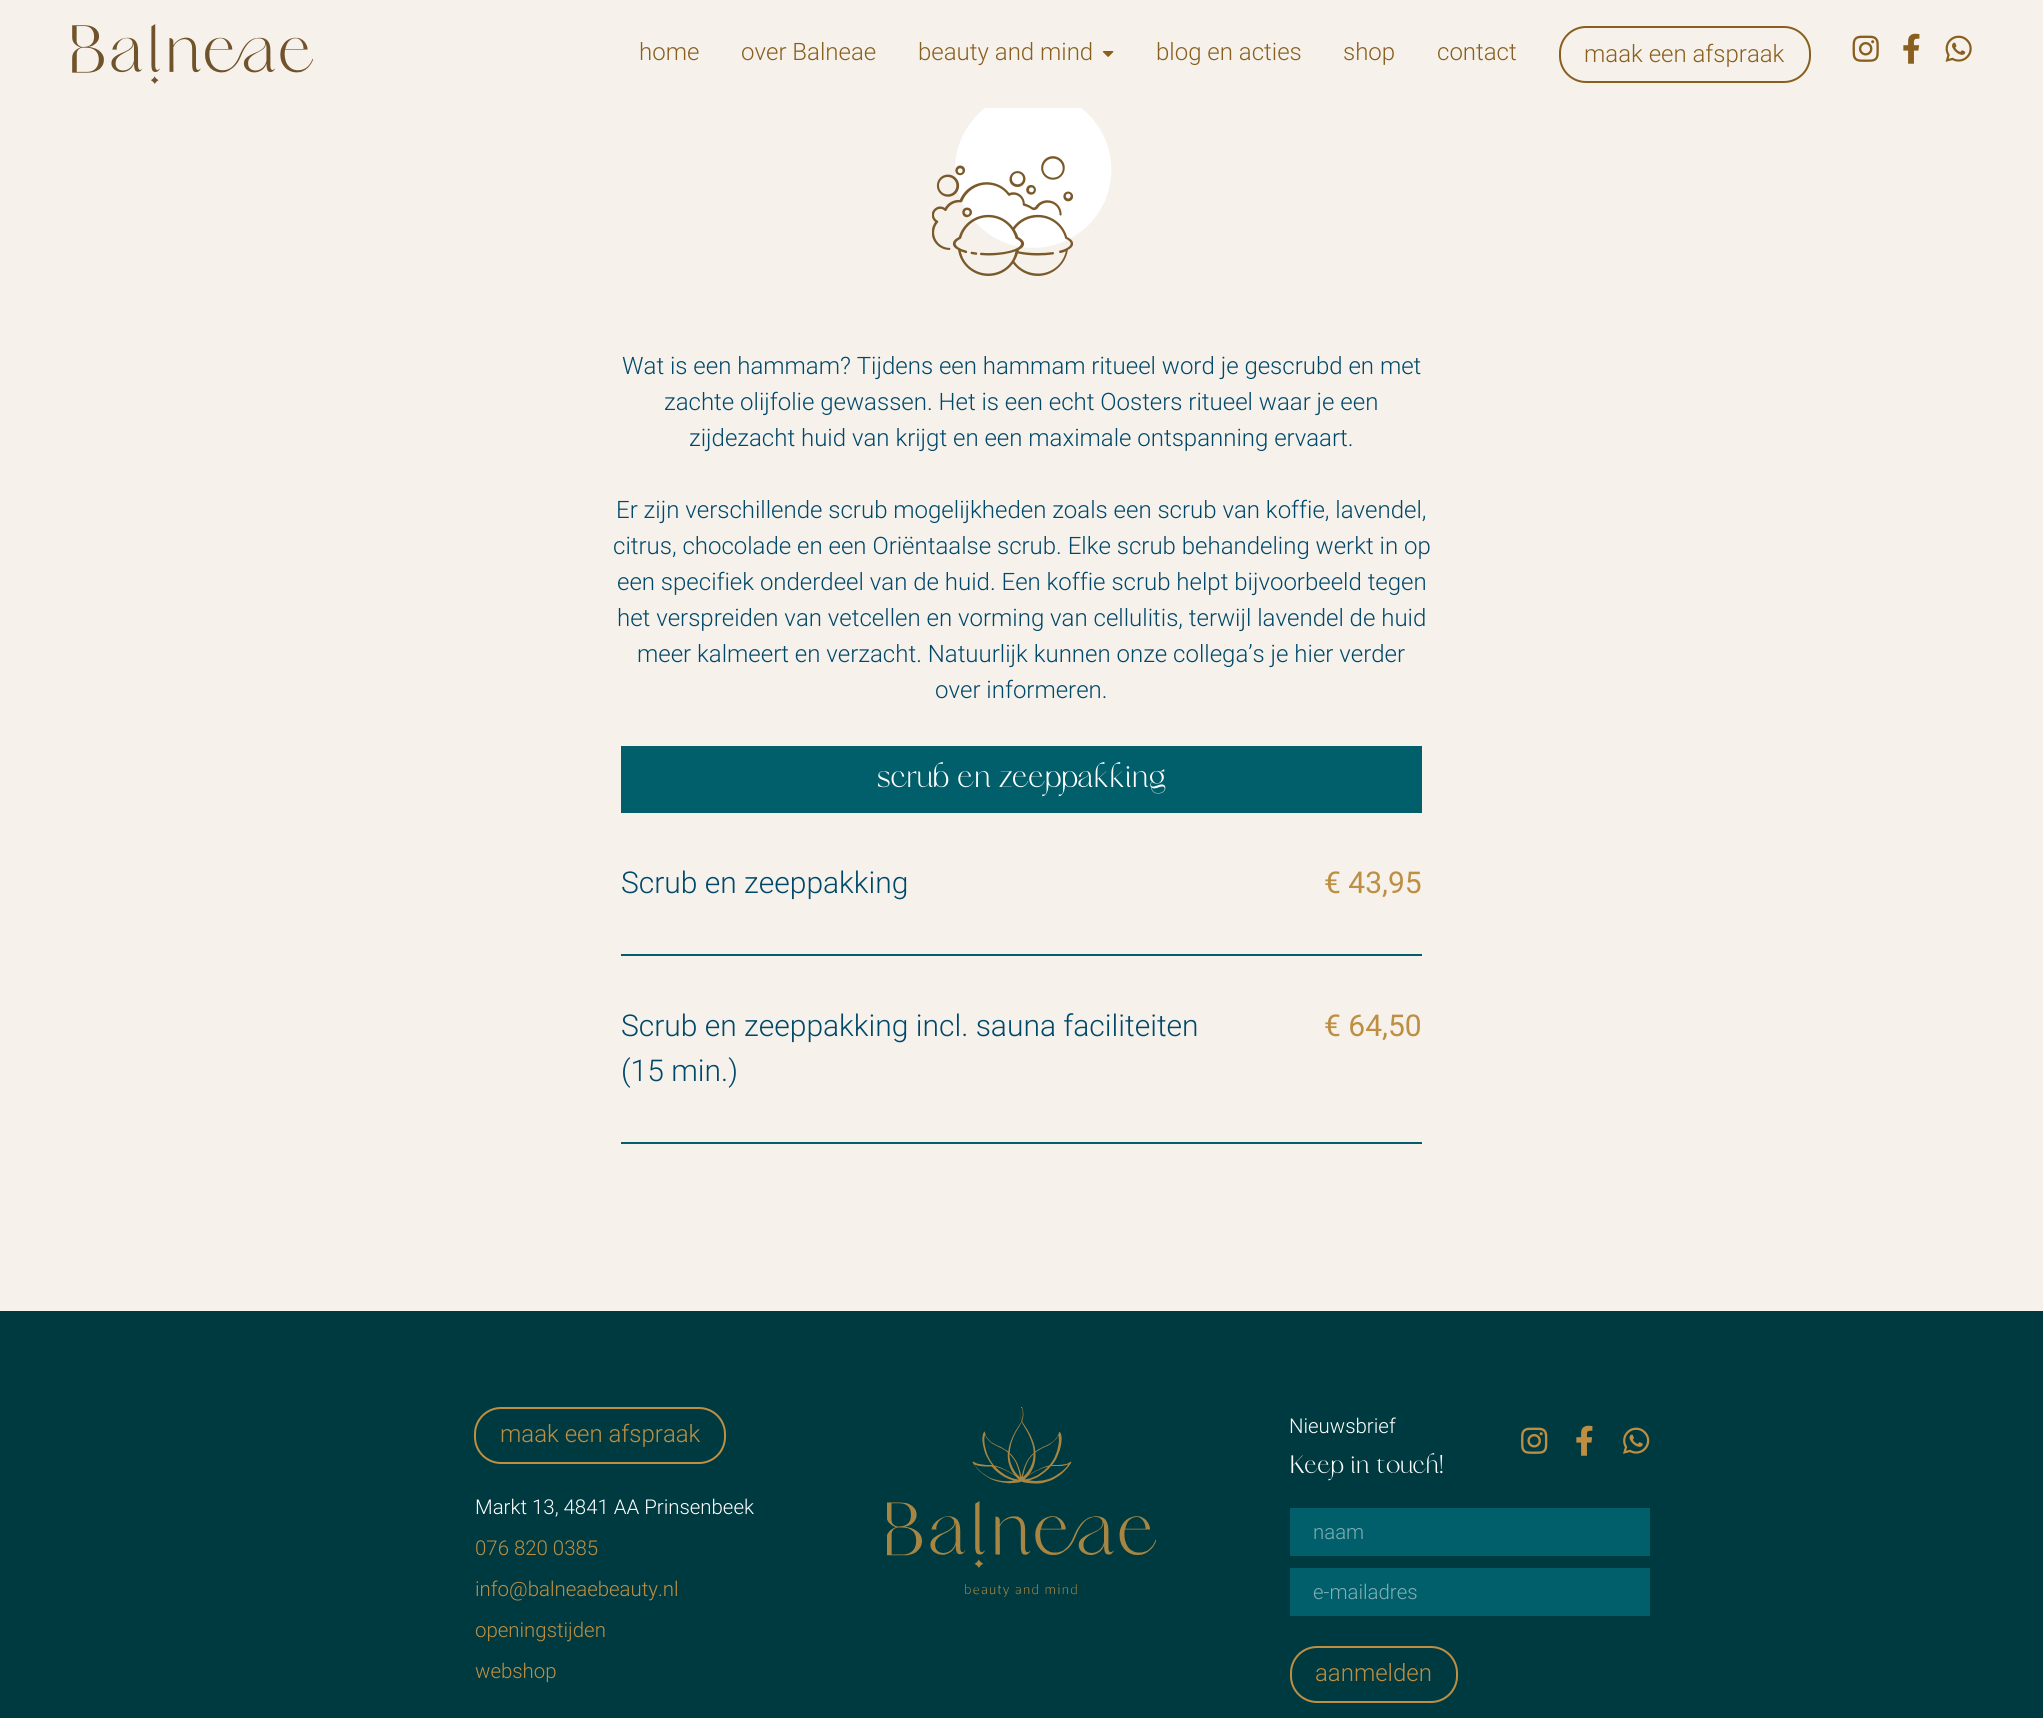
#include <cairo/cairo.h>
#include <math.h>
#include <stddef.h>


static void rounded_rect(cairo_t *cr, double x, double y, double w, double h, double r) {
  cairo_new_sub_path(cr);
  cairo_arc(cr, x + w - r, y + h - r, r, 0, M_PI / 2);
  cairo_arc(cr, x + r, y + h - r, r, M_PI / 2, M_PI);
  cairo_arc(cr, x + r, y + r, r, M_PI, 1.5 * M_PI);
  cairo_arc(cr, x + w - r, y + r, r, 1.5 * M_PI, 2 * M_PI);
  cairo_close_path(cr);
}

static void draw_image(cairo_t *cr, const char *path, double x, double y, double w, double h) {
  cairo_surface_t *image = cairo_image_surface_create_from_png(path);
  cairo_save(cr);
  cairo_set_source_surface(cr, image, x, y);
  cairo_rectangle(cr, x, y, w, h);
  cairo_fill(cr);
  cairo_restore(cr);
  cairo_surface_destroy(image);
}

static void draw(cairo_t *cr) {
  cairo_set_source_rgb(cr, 246 / 255.0, 242 / 255.0, 235 / 255.0);
  cairo_paint(cr);
  draw_image(cr, "images/1.png", 72, 24, 242, 60);
  draw_image(cr, "images/2.png", 1102, 51, 12, 6);
  rounded_rect(cr, 1560, 27, 250, 55, 26);
  cairo_set_source_rgb(cr, 137 / 255.0, 95 / 255.0, 30 / 255.0);
  cairo_stroke(cr);
  draw_image(cr, "images/3.png", 1852, 35, 27, 27);
  draw_image(cr, "images/4.png", 1903, 33, 17, 31);
  draw_image(cr, "images/5.png", 1945, 35, 27, 27);
  draw_image(cr, "images/6.png", 932, 108, 180, 168);
  cairo_set_source_rgb(cr, 0, 95 / 255.0, 106 / 255.0);
  cairo_rectangle(cr, 621, 746, 801, 67);
  cairo_fill(cr);
  cairo_rectangle(cr, 621, 954, 801, 2);
  cairo_fill(cr);
  cairo_rectangle(cr, 621, 1142, 801, 2);
  cairo_fill(cr);
  cairo_set_source_rgb(cr, 0, 58 / 255.0, 65 / 255.0);
  cairo_rectangle(cr, 0, 1311, 2043, 407);
  cairo_fill(cr);
  rounded_rect(cr, 475, 1408, 250, 55, 26);
  cairo_set_source_rgb(cr, 190 / 255.0, 143 / 255.0, 66 / 255.0);
  cairo_stroke(cr);
  draw_image(cr, "images/7.png", 887, 1407, 270, 190);
  draw_image(cr, "images/8.png", 1521, 1427, 27, 27);
  draw_image(cr, "images/9.png", 1576, 1425, 17, 31);
  draw_image(cr, "images/10.png", 1623, 1427, 27, 27);
  cairo_set_source_rgb(cr, 0, 95 / 255.0, 106 / 255.0);
  cairo_rectangle(cr, 1290, 1508, 360, 48);
  cairo_fill(cr);
  cairo_rectangle(cr, 1290, 1568, 360, 48);
  cairo_fill(cr);
  rounded_rect(cr, 1291, 1647, 166, 55, 26);
  cairo_set_source_rgb(cr, 190 / 255.0, 143 / 255.0, 66 / 255.0);
  cairo_stroke(cr);
  cairo_select_font_face(cr, "Roboto Light", CAIRO_FONT_SLANT_NORMAL, CAIRO_FONT_WEIGHT_NORMAL);
  cairo_set_font_size(cr, 24);
  cairo_set_source_rgb(cr, 137 / 255.0, 95 / 255.0, 30 / 255.0);
  cairo_move_to(cr, 639, 60);
  cairo_show_text(cr, "home");
  cairo_move_to(cr, 741, 60);
  cairo_show_text(cr, "over Balneae");
  cairo_move_to(cr, 918, 60);
  cairo_show_text(cr, "beauty and mind");
  cairo_move_to(cr, 1156, 60);
  cairo_show_text(cr, "blog en acties");
  cairo_move_to(cr, 1343, 60);
  cairo_show_text(cr, "shop");
  cairo_move_to(cr, 1437, 60);
  cairo_show_text(cr, "contact");
  cairo_move_to(cr, 1584, 62);
  cairo_show_text(cr, "maak een afspraak");
  cairo_set_source_rgb(cr, 0, 72 / 255.0, 106 / 255.0);
  cairo_move_to(cr, 622, 374);
  cairo_show_text(cr, "Wat is een hammam? Tijdens een hammam ritueel word je gescrubd en met");
  cairo_move_to(cr, 664, 410);
  cairo_show_text(cr, "zachte olijfolie gewassen. Het is een echt Oosters ritueel waar je een");
  cairo_move_to(cr, 689, 446);
  cairo_show_text(cr, "zijdezacht huid van krijgt en een maximale ontspanning ervaart.");
  cairo_move_to(cr, 616, 518);
  cairo_show_text(cr, "Er zijn verschillende scrub mogelijkheden zoals een scrub van koffie, lavendel,");
  cairo_move_to(cr, 613, 554);
  cairo_show_text(cr, "citrus, chocolade en een Oriëntaalse scrub. Elke scrub behandeling werkt in op");
  cairo_move_to(cr, 617, 590);
  cairo_show_text(cr, "een specifiek onderdeel van de huid. Een koffie scrub helpt bijvoorbeeld tegen");
  cairo_move_to(cr, 617, 626);
  cairo_show_text(cr, "het verspreiden van vetcellen en vorming van cellulitis, terwijl lavendel de huid");
  cairo_move_to(cr, 637, 662);
  cairo_show_text(cr, "meer kalmeert en verzacht. Natuurlijk kunnen onze collega’s je hier verder");
  cairo_move_to(cr, 935, 698);
  cairo_show_text(cr, "over informeren.");
  cairo_select_font_face(cr, "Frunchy", CAIRO_FONT_SLANT_NORMAL, CAIRO_FONT_WEIGHT_NORMAL);
  cairo_set_font_size(cr, 45);
  cairo_set_source_rgb(cr, 1, 1, 1);
  cairo_move_to(cr, 877, 787);
  cairo_show_text(cr, "scrub en zeeppakking");
  cairo_select_font_face(cr, "Roboto Light", CAIRO_FONT_SLANT_NORMAL, CAIRO_FONT_WEIGHT_NORMAL);
  cairo_set_font_size(cr, 30);
  cairo_set_source_rgb(cr, 0, 72 / 255.0, 106 / 255.0);
  cairo_move_to(cr, 621, 893);
  cairo_show_text(cr, "Scrub en zeeppakking");
  cairo_select_font_face(cr, "Roboto", CAIRO_FONT_SLANT_NORMAL, CAIRO_FONT_WEIGHT_NORMAL);
  cairo_set_source_rgb(cr, 190 / 255.0, 143 / 255.0, 66 / 255.0);
  cairo_move_to(cr, 1324, 893);
  cairo_show_text(cr, "€ 43,95");
  cairo_select_font_face(cr, "Roboto Light", CAIRO_FONT_SLANT_NORMAL, CAIRO_FONT_WEIGHT_NORMAL);
  cairo_set_source_rgb(cr, 0, 72 / 255.0, 106 / 255.0);
  cairo_move_to(cr, 621, 1036);
  cairo_show_text(cr, "Scrub en zeeppakking incl. sauna faciliteiten");
  cairo_select_font_face(cr, "Roboto", CAIRO_FONT_SLANT_NORMAL, CAIRO_FONT_WEIGHT_NORMAL);
  cairo_set_source_rgb(cr, 190 / 255.0, 143 / 255.0, 66 / 255.0);
  cairo_move_to(cr, 1324, 1036);
  cairo_show_text(cr, "€ 64,50");
  cairo_select_font_face(cr, "Roboto Light", CAIRO_FONT_SLANT_NORMAL, CAIRO_FONT_WEIGHT_NORMAL);
  cairo_set_source_rgb(cr, 0, 72 / 255.0, 106 / 255.0);
  cairo_move_to(cr, 621, 1081);
  cairo_show_text(cr, "(15 min.)");
  cairo_set_font_size(cr, 24);
  cairo_set_source_rgb(cr, 190 / 255.0, 143 / 255.0, 66 / 255.0);
  cairo_move_to(cr, 500, 1442);
  cairo_show_text(cr, "maak een afspraak");
  cairo_set_font_size(cr, 20.4);
  cairo_set_source_rgb(cr, 1, 1, 1);
  cairo_move_to(cr, 475, 1514);
  cairo_show_text(cr, "Markt 13, 4841 AA Prinsenbeek");
  cairo_set_source_rgb(cr, 190 / 255.0, 143 / 255.0, 66 / 255.0);
  cairo_move_to(cr, 475, 1555);
  cairo_show_text(cr, "076 820 0385");
  cairo_move_to(cr, 475, 1596);
  cairo_show_text(cr, "info@balneaebeauty.nl");
  cairo_move_to(cr, 475, 1637);
  cairo_show_text(cr, "openingstijden");
  cairo_move_to(cr, 475, 1678);
  cairo_show_text(cr, "webshop");
  cairo_set_source_rgb(cr, 1, 1, 1);
  cairo_move_to(cr, 1289, 1433);
  cairo_show_text(cr, "Nieuwsbrief");
  cairo_select_font_face(cr, "Frunchy", CAIRO_FONT_SLANT_NORMAL, CAIRO_FONT_WEIGHT_NORMAL);
  cairo_set_font_size(cr, 36);
  cairo_move_to(cr, 1289, 1473);
  cairo_show_text(cr, "Keep in touch!");
  cairo_select_font_face(cr, "Roboto Light", CAIRO_FONT_SLANT_NORMAL, CAIRO_FONT_WEIGHT_NORMAL);
  cairo_set_font_size(cr, 20.4);
  cairo_set_source_rgb(cr, 128 / 255.0, 175 / 255.0, 181 / 255.0);
  cairo_move_to(cr, 1313, 1539);
  cairo_show_text(cr, "naam");
  cairo_move_to(cr, 1313, 1599);
  cairo_show_text(cr, "e-mailadres");
  cairo_set_font_size(cr, 24);
  cairo_set_source_rgb(cr, 190 / 255.0, 143 / 255.0, 66 / 255.0);
  cairo_move_to(cr, 1315, 1681);
  cairo_show_text(cr, "aanmelden");
}

int main(void) {
  cairo_surface_t *surface = cairo_image_surface_create(CAIRO_FORMAT_RGB24, 2043, 1718);
  cairo_t *cr = cairo_create(surface);
  cairo_font_options_t *options = cairo_font_options_create();
  cairo_font_options_set_hint_metrics(options, CAIRO_HINT_METRICS_OFF);
  cairo_font_options_set_hint_style(options, CAIRO_HINT_STYLE_NONE);
  cairo_set_font_options(cr, options);
  cairo_set_miter_limit(cr, 4);
  draw(cr);
  cairo_surface_write_to_png(surface, "out.png");
  cairo_font_options_destroy(options);
  cairo_destroy(cr);
  cairo_surface_destroy(surface);
  return 0;
}
